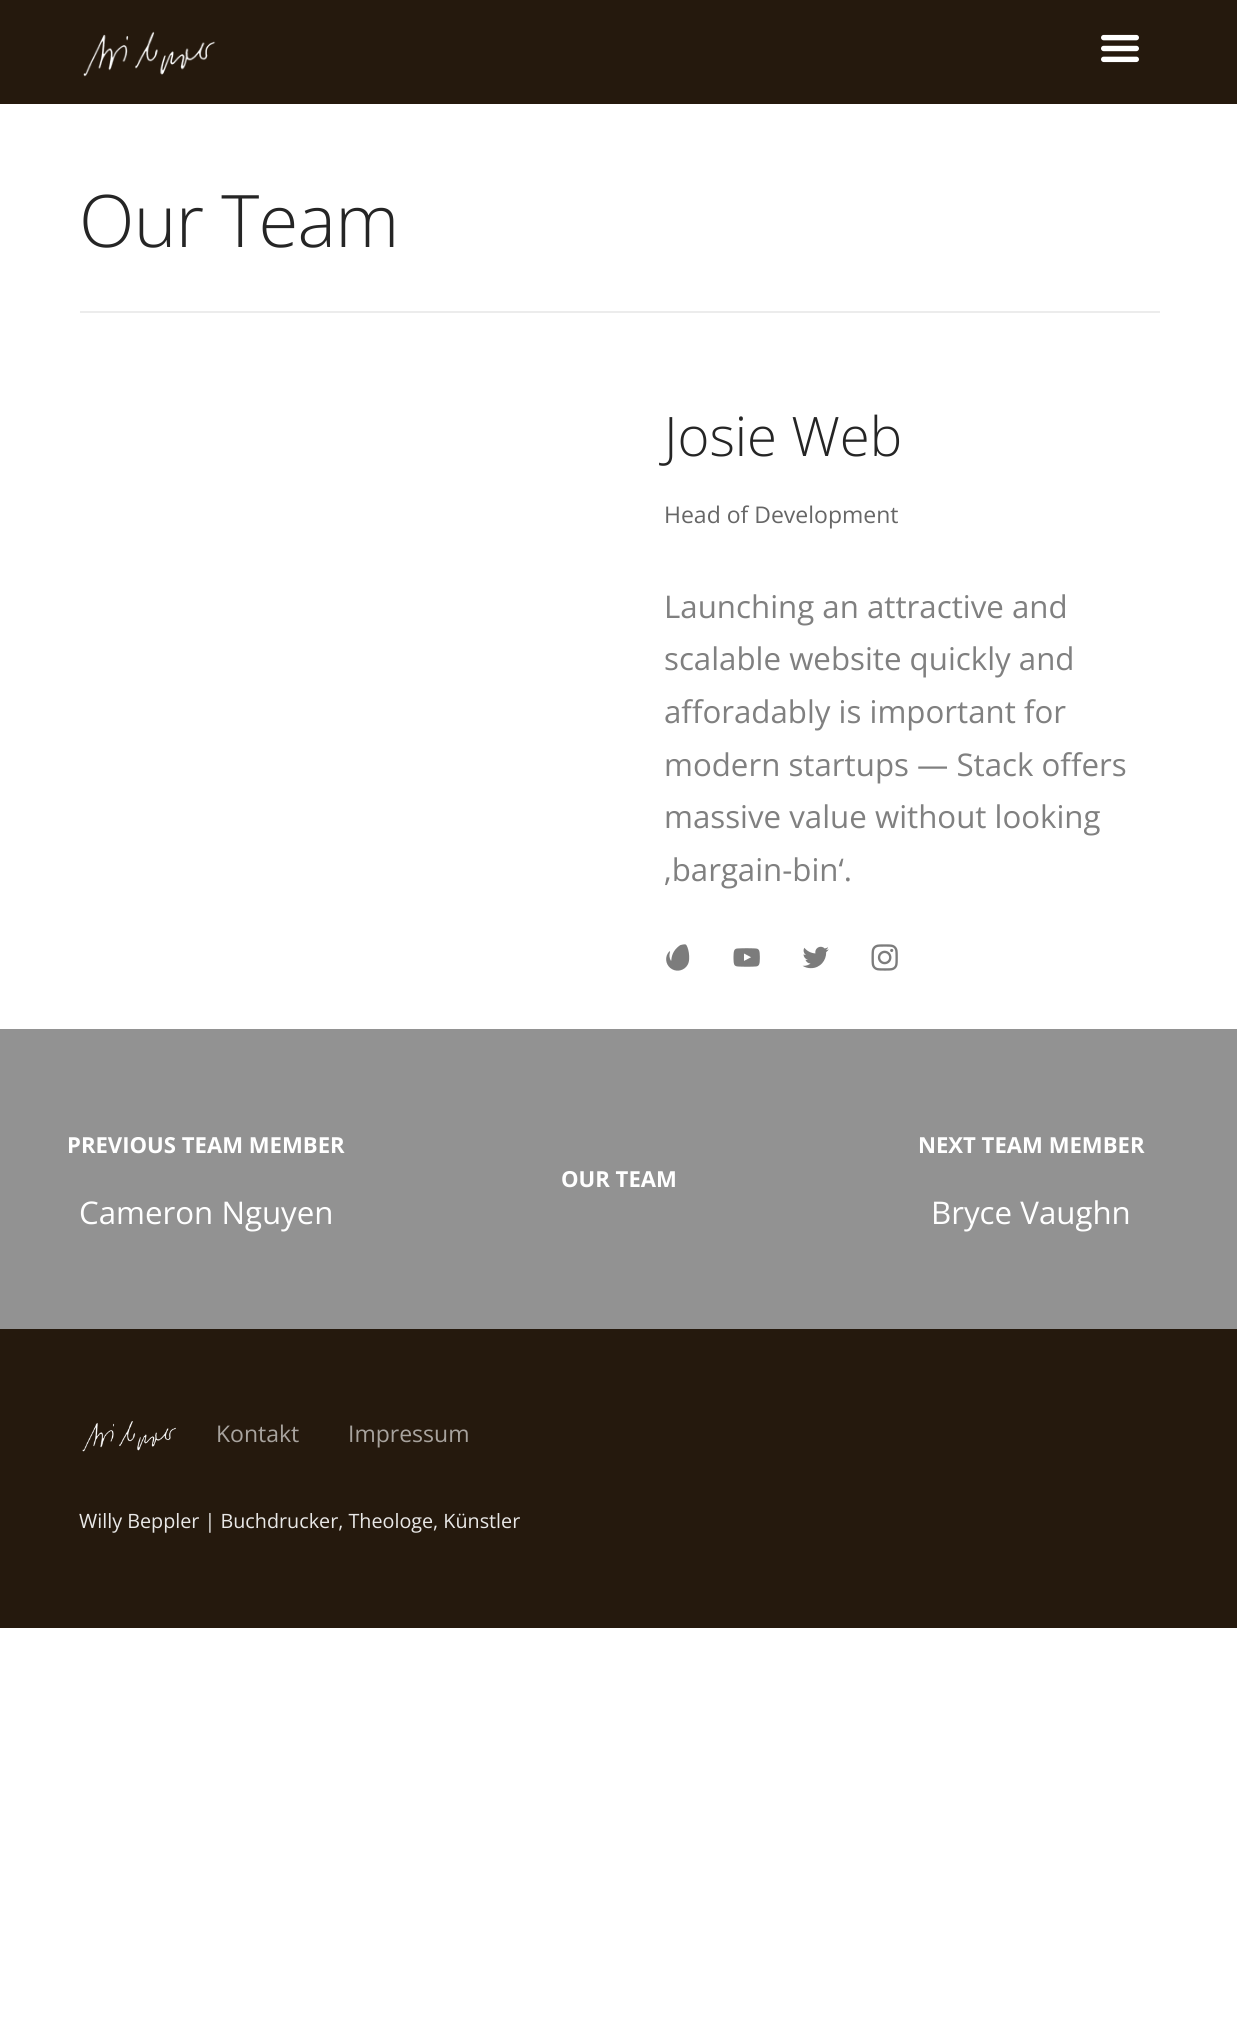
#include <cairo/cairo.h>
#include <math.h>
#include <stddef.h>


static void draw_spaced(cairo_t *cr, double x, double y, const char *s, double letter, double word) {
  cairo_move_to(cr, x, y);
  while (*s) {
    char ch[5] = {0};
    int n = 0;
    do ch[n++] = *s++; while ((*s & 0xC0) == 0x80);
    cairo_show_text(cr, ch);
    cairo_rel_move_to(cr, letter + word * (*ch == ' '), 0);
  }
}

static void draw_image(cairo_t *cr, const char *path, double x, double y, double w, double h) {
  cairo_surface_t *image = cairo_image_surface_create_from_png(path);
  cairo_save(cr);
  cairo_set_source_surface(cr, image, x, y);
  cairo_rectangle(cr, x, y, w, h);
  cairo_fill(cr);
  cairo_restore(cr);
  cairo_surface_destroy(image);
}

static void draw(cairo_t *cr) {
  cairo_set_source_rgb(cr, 1, 1, 1);
  cairo_paint(cr);
  cairo_set_source_rgb(cr, 37 / 255.0, 25 / 255.0, 13 / 255.0);
  cairo_rectangle(cr, 0, 0, 1237, 104);
  cairo_fill(cr);
  draw_image(cr, "images/1.png", 83, 31, 133, 46);
  draw_image(cr, "images/2.png", 1101, 34, 38, 29);
  cairo_set_source_rgb(cr, 236 / 255.0, 236 / 255.0, 236 / 255.0);
  cairo_rectangle(cr, 80, 311, 1080, 2);
  cairo_fill(cr);
  draw_image(cr, "images/3.png", 666, 944, 24, 27);
  draw_image(cr, "images/4.png", 733, 948, 27, 19);
  draw_image(cr, "images/5.png", 802, 946, 27, 23);
  draw_image(cr, "images/6.png", 871, 944, 27, 27);
  cairo_set_source_rgb(cr, 146 / 255.0, 146 / 255.0, 146 / 255.0);
  cairo_rectangle(cr, 0, 1029, 1237, 300);
  cairo_fill(cr);
  cairo_set_source_rgb(cr, 37 / 255.0, 25 / 255.0, 13 / 255.0);
  cairo_rectangle(cr, 0, 1329, 1237, 299);
  cairo_fill(cr);
  draw_image(cr, "images/7.png", 82, 1421, 94, 31);
  cairo_select_font_face(cr, "Open Sans Light", CAIRO_FONT_SLANT_NORMAL, CAIRO_FONT_WEIGHT_NORMAL);
  cairo_set_font_size(cr, 72.5);
  cairo_set_source_rgb(cr, 37 / 255.0, 37 / 255.0, 37 / 255.0);
  draw_spaced(cr, 79, 247, "Our Team", -0.75, 0);
  cairo_set_font_size(cr, 54.5);
  cairo_move_to(cr, 664, 456);
  cairo_show_text(cr, "Josie Web");
  cairo_select_font_face(cr, "Open Sans", CAIRO_FONT_SLANT_NORMAL, CAIRO_FONT_WEIGHT_NORMAL);
  cairo_set_font_size(cr, 23);
  cairo_set_source_rgb(cr, 102 / 255.0, 102 / 255.0, 102 / 255.0);
  cairo_move_to(cr, 664, 523);
  cairo_show_text(cr, "Head of Development");
  cairo_set_font_size(cr, 31.25);
  cairo_set_source_rgb(cr, 128 / 255.0, 128 / 255.0, 128 / 255.0);
  cairo_move_to(cr, 664, 618);
  cairo_show_text(cr, "Launching an attractive and");
  cairo_move_to(cr, 664, 670);
  cairo_show_text(cr, "scalable website quickly and");
  cairo_move_to(cr, 664, 723);
  cairo_show_text(cr, "afforadably is important for");
  cairo_move_to(cr, 664, 776);
  cairo_show_text(cr, "modern startups — Stack offers");
  cairo_move_to(cr, 664, 828);
  cairo_show_text(cr, "massive value without looking");
  cairo_move_to(cr, 664, 881);
  cairo_show_text(cr, "‚bargain-bin‘.");
  cairo_select_font_face(cr, "Open Sans", CAIRO_FONT_SLANT_NORMAL, CAIRO_FONT_WEIGHT_BOLD);
  cairo_set_font_size(cr, 22.1);
  cairo_set_source_rgb(cr, 1, 1, 1);
  cairo_move_to(cr, 67, 1153);
  cairo_show_text(cr, "PREVIOUS TEAM MEMBER");
  cairo_select_font_face(cr, "Open Sans", CAIRO_FONT_SLANT_NORMAL, CAIRO_FONT_WEIGHT_NORMAL);
  cairo_set_font_size(cr, 31.25);
  cairo_move_to(cr, 79, 1224);
  cairo_show_text(cr, "Cameron Nguyen");
  cairo_select_font_face(cr, "Open Sans", CAIRO_FONT_SLANT_NORMAL, CAIRO_FONT_WEIGHT_BOLD);
  cairo_set_font_size(cr, 22.1);
  cairo_move_to(cr, 561, 1187);
  cairo_show_text(cr, "OUR TEAM");
  cairo_move_to(cr, 918, 1153);
  cairo_show_text(cr, "NEXT TEAM MEMBER");
  cairo_select_font_face(cr, "Open Sans", CAIRO_FONT_SLANT_NORMAL, CAIRO_FONT_WEIGHT_NORMAL);
  cairo_set_font_size(cr, 31.25);
  cairo_move_to(cr, 931, 1224);
  cairo_show_text(cr, "Bryce Vaughn");
  cairo_set_font_size(cr, 23);
  cairo_set_source_rgb(cr, 168 / 255.0, 163 / 255.0, 158 / 255.0);
  cairo_move_to(cr, 216, 1442);
  cairo_show_text(cr, "Kontakt");
  cairo_move_to(cr, 348, 1442);
  cairo_show_text(cr, "Impressum");
  cairo_set_font_size(cr, 19.75);
  cairo_set_source_rgb(cr, 233 / 255.0, 232 / 255.0, 231 / 255.0);
  cairo_move_to(cr, 79, 1528);
  cairo_show_text(cr, "Willy Beppler | Buchdrucker, Theologe, Künstler");
}

int main(void) {
  cairo_surface_t *surface = cairo_image_surface_create(CAIRO_FORMAT_RGB24, 1237, 2028);
  cairo_t *cr = cairo_create(surface);
  cairo_font_options_t *options = cairo_font_options_create();
  cairo_font_options_set_hint_metrics(options, CAIRO_HINT_METRICS_OFF);
  cairo_font_options_set_hint_style(options, CAIRO_HINT_STYLE_NONE);
  cairo_set_font_options(cr, options);
  cairo_set_miter_limit(cr, 4);
  draw(cr);
  cairo_surface_write_to_png(surface, "out.png");
  cairo_font_options_destroy(options);
  cairo_destroy(cr);
  cairo_surface_destroy(surface);
  return 0;
}
